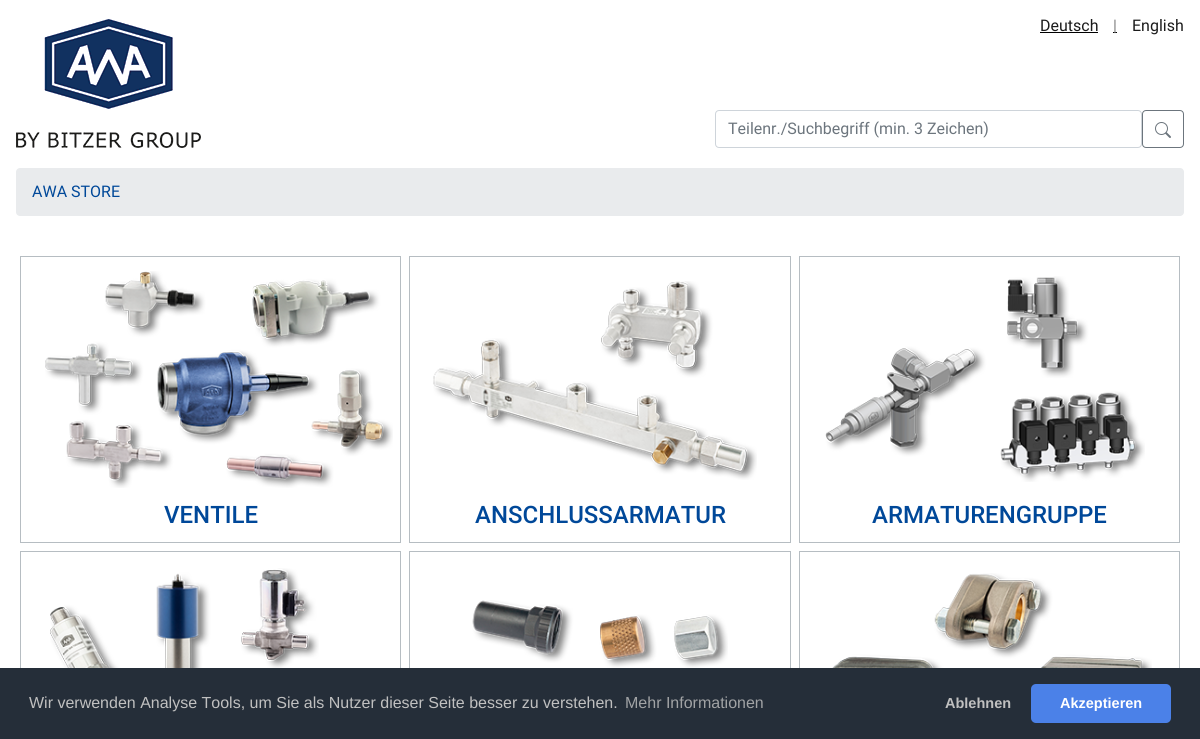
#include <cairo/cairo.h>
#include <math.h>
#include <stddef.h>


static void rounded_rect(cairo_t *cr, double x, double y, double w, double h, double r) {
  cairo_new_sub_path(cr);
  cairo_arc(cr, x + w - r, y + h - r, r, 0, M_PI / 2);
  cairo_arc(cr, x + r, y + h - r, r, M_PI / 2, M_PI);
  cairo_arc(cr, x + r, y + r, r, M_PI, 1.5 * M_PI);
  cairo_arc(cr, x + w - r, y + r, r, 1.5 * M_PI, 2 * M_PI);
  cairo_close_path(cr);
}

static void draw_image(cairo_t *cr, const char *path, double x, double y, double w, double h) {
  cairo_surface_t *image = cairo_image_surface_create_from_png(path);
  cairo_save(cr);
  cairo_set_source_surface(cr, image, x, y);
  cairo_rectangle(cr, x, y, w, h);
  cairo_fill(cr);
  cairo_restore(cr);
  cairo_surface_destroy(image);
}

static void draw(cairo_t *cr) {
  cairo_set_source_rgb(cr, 1, 1, 1);
  cairo_paint(cr);
  draw_image(cr, "images/1.png", 16, 19, 185, 129);
  cairo_set_source_rgb(cr, 0, 0, 0);
  cairo_rectangle(cr, 1040, 32, 58, 1);
  cairo_fill(cr);
  cairo_rectangle(cr, 1113, 32, 4, 1);
  cairo_fill(cr);
  rounded_rect(cr, 715.5, 110.5, 426, 37, 3.5);
  cairo_set_source_rgb(cr, 206 / 255.0, 212 / 255.0, 218 / 255.0);
  cairo_set_line_width(cr, 1);
  cairo_stroke(cr);
  rounded_rect(cr, 1142.5, 110.5, 41, 37, 3.5);
  cairo_set_source_rgb(cr, 108 / 255.0, 117 / 255.0, 125 / 255.0);
  cairo_stroke(cr);
  draw_image(cr, "images/2.png", 1155, 122, 16, 16);
  cairo_set_source_rgb(cr, 233 / 255.0, 235 / 255.0, 237 / 255.0);
  rounded_rect(cr, 16, 168, 1168, 48, 4);
  cairo_fill(cr);
  cairo_rectangle(cr, 20.5, 256.5, 380, 286);
  cairo_set_source_rgb(cr, 182 / 255.0, 189 / 255.0, 194 / 255.0);
  cairo_stroke(cr);
  draw_image(cr, "images/3.png", 45, 271, 348, 217);
  cairo_rectangle(cr, 409.5, 256.5, 381, 286);
  cairo_stroke(cr);
  draw_image(cr, "images/4.png", 433, 281, 324, 199);
  cairo_rectangle(cr, 799.5, 256.5, 380, 286);
  cairo_stroke(cr);
  draw_image(cr, "images/5.png", 825, 276, 320, 206);
  cairo_rectangle(cr, 20.5, 551.5, 380, 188);
  cairo_stroke(cr);
  draw_image(cr, "images/6.png", 50, 568, 269, 100);
  cairo_rectangle(cr, 409.5, 551.5, 381, 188);
  cairo_stroke(cr);
  draw_image(cr, "images/7.png", 472, 600, 256, 68);
  cairo_rectangle(cr, 799.5, 551.5, 380, 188);
  cairo_stroke(cr);
  draw_image(cr, "images/8.png", 832, 573, 320, 95);
  cairo_set_source_rgb(cr, 37 / 255.0, 46 / 255.0, 57 / 255.0);
  cairo_rectangle(cr, 0, 668, 1200, 71);
  cairo_fill(cr);
  cairo_set_source_rgb(cr, 75 / 255.0, 129 / 255.0, 232 / 255.0);
  rounded_rect(cr, 1031, 684, 140, 39, 5);
  cairo_fill(cr);
  cairo_select_font_face(cr, "Roboto", CAIRO_FONT_SLANT_NORMAL, CAIRO_FONT_WEIGHT_NORMAL);
  cairo_set_font_size(cr, 16);
  cairo_set_source_rgb(cr, 27 / 255.0, 27 / 255.0, 27 / 255.0);
  cairo_move_to(cr, 1040, 31);
  cairo_show_text(cr, "Deutsch");
  cairo_set_source_rgb(cr, 128 / 255.0, 128 / 255.0, 128 / 255.0);
  cairo_move_to(cr, 1113, 31);
  cairo_show_text(cr, "|");
  cairo_set_source_rgb(cr, 27 / 255.0, 27 / 255.0, 27 / 255.0);
  cairo_move_to(cr, 1132, 31);
  cairo_show_text(cr, "English");
  cairo_set_source_rgb(cr, 108 / 255.0, 117 / 255.0, 125 / 255.0);
  cairo_move_to(cr, 728, 134);
  cairo_show_text(cr, "Teilenr./Suchbegriff (min. 3 Zeichen)");
  cairo_set_source_rgb(cr, 0, 72 / 255.0, 153 / 255.0);
  cairo_move_to(cr, 32, 197);
  cairo_show_text(cr, "AWA STORE");
  cairo_select_font_face(cr, "Roboto Medium", CAIRO_FONT_SLANT_NORMAL, CAIRO_FONT_WEIGHT_NORMAL);
  cairo_set_font_size(cr, 24);
  cairo_move_to(cr, 164, 523);
  cairo_show_text(cr, "VENTILE");
  cairo_move_to(cr, 475, 523);
  cairo_show_text(cr, "ANSCHLUSSARMATUR");
  cairo_move_to(cr, 872, 523);
  cairo_show_text(cr, "ARMATURENGRUPPE");
  cairo_select_font_face(cr, "Liberation Sans", CAIRO_FONT_SLANT_NORMAL, CAIRO_FONT_WEIGHT_NORMAL);
  cairo_set_font_size(cr, 16);
  cairo_set_source_rgb(cr, 192 / 255.0, 192 / 255.0, 192 / 255.0);
  cairo_move_to(cr, 29, 708);
  cairo_show_text(cr, "Wir verwenden Analyse Tools, um Sie als Nutzer dieser Seite besser zu verstehen.");
  cairo_set_source_rgb(cr, 161 / 255.0, 163 / 255.0, 165 / 255.0);
  cairo_move_to(cr, 625, 708);
  cairo_show_text(cr, "Mehr Informationen");
  cairo_select_font_face(cr, "Liberation Sans", CAIRO_FONT_SLANT_NORMAL, CAIRO_FONT_WEIGHT_BOLD);
  cairo_set_font_size(cr, 14.5);
  cairo_set_source_rgb(cr, 192 / 255.0, 192 / 255.0, 192 / 255.0);
  cairo_move_to(cr, 945, 708);
  cairo_show_text(cr, "Ablehnen");
  cairo_set_source_rgb(cr, 1, 1, 1);
  cairo_move_to(cr, 1060, 708);
  cairo_show_text(cr, "Akzeptieren");
}

int main(void) {
  cairo_surface_t *surface = cairo_image_surface_create(CAIRO_FORMAT_RGB24, 1200, 739);
  cairo_t *cr = cairo_create(surface);
  cairo_font_options_t *options = cairo_font_options_create();
  cairo_font_options_set_hint_metrics(options, CAIRO_HINT_METRICS_OFF);
  cairo_font_options_set_hint_style(options, CAIRO_HINT_STYLE_NONE);
  cairo_set_font_options(cr, options);
  cairo_set_miter_limit(cr, 4);
  draw(cr);
  cairo_surface_write_to_png(surface, "out.png");
  cairo_font_options_destroy(options);
  cairo_destroy(cr);
  cairo_surface_destroy(surface);
  return 0;
}
